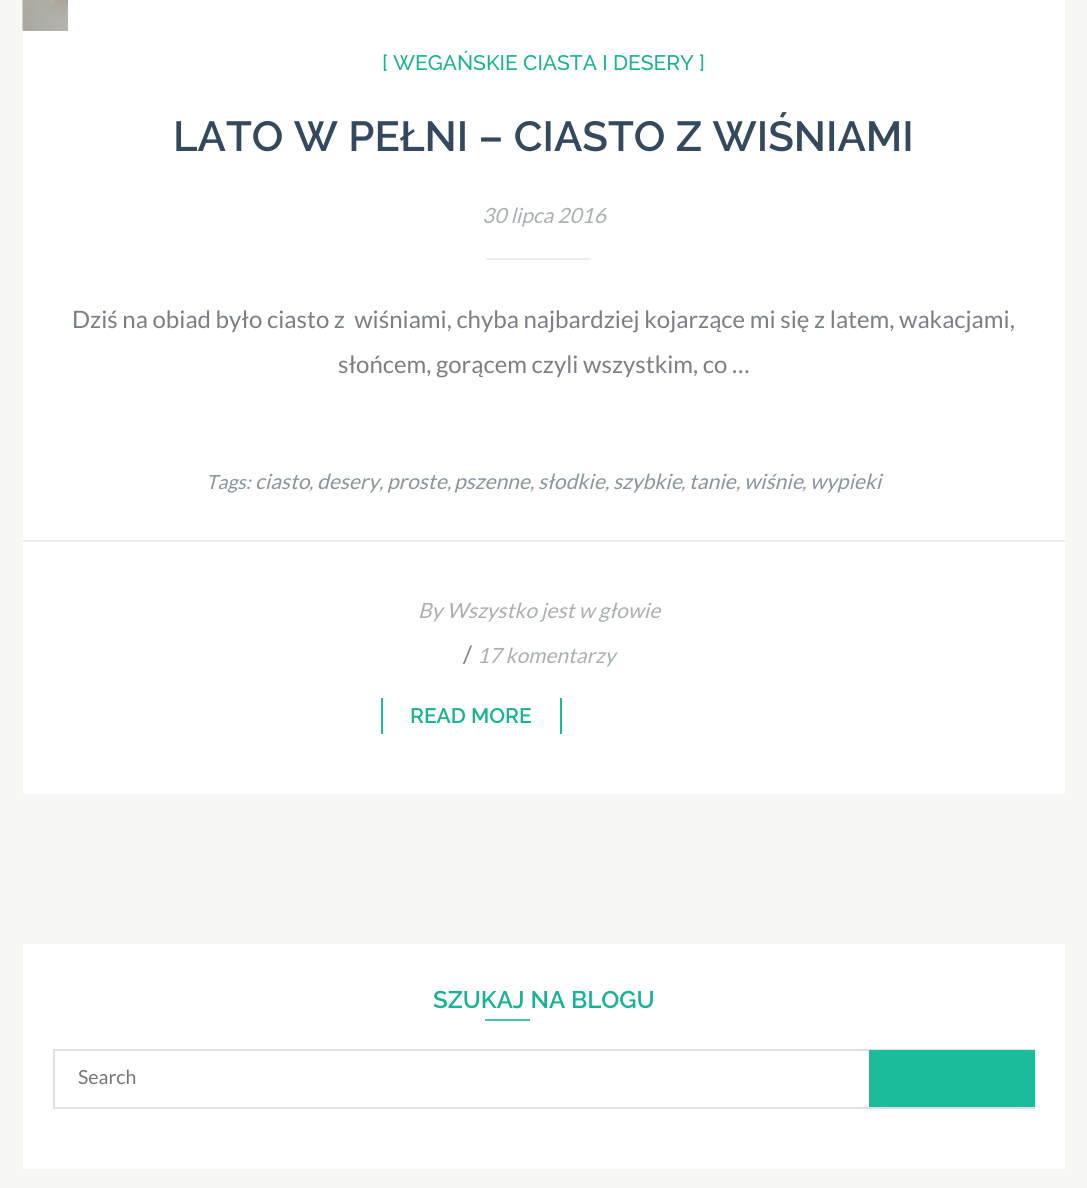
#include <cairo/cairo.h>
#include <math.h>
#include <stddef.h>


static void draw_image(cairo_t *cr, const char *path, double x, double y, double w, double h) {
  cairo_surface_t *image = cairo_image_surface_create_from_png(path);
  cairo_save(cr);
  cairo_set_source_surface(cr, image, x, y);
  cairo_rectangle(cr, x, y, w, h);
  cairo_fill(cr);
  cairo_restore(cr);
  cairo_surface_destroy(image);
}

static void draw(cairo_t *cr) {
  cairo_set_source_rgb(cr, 247 / 255.0, 248 / 255.0, 243 / 255.0);
  cairo_paint(cr);
  cairo_set_source_rgb(cr, 1, 1, 1);
  cairo_rectangle(cr, 23, 0, 1042, 794);
  cairo_fill(cr);
  draw_image(cr, "images/1.png", 22, 0, 46, 31);
  cairo_set_source_rgb(cr, 235 / 255.0, 237 / 255.0, 239 / 255.0);
  cairo_rectangle(cr, 486, 258, 105, 2);
  cairo_fill(cr);
  cairo_rectangle(cr, 23, 540, 1042, 2);
  cairo_fill(cr);
  cairo_set_source_rgb(cr, 27 / 255.0, 188 / 255.0, 155 / 255.0);
  cairo_rectangle(cr, 560, 698, 2, 36);
  cairo_fill(cr);
  cairo_rectangle(cr, 381, 698, 2, 36);
  cairo_fill(cr);
  cairo_set_source_rgb(cr, 1, 1, 1);
  cairo_rectangle(cr, 23, 944, 1042, 225);
  cairo_fill(cr);
  cairo_set_source_rgb(cr, 72 / 255.0, 193 / 255.0, 169 / 255.0);
  cairo_rectangle(cr, 485, 1019, 45, 2);
  cairo_fill(cr);
  cairo_set_source_rgb(cr, 221 / 255.0, 225 / 255.0, 229 / 255.0);
  cairo_rectangle(cr, 53, 1049, 982, 2);
  cairo_fill(cr);
  cairo_rectangle(cr, 53, 1107, 982, 2);
  cairo_fill(cr);
  cairo_rectangle(cr, 53, 1049, 2, 60);
  cairo_fill(cr);
  cairo_set_source_rgb(cr, 27 / 255.0, 188 / 255.0, 155 / 255.0);
  cairo_rectangle(cr, 869, 1050, 166, 57);
  cairo_fill(cr);
  cairo_select_font_face(cr, "Raleway Medium", CAIRO_FONT_SLANT_NORMAL, CAIRO_FONT_WEIGHT_NORMAL);
  cairo_set_font_size(cr, 21);
  cairo_set_source_rgb(cr, 26 / 255.0, 178 / 255.0, 147 / 255.0);
  cairo_move_to(cr, 382, 70);
  cairo_show_text(cr, "[ WEGAŃSKIE CIASTA I DESERY ]");
  cairo_select_font_face(cr, "Raleway SemiBold", CAIRO_FONT_SLANT_NORMAL, CAIRO_FONT_WEIGHT_NORMAL);
  cairo_set_font_size(cr, 42);
  cairo_set_source_rgb(cr, 52 / 255.0, 73 / 255.0, 94 / 255.0);
  cairo_move_to(cr, 173, 151);
  cairo_show_text(cr, "LATO W PEŁNI – CIASTO Z WIŚNIAMI");
  cairo_select_font_face(cr, "Lato", CAIRO_FONT_SLANT_ITALIC, CAIRO_FONT_WEIGHT_NORMAL);
  cairo_set_font_size(cr, 21);
  cairo_set_source_rgb(cr, 168 / 255.0, 176 / 255.0, 180 / 255.0);
  cairo_move_to(cr, 482, 223);
  cairo_show_text(cr, "30 lipca 2016");
  cairo_select_font_face(cr, "Lato", CAIRO_FONT_SLANT_NORMAL, CAIRO_FONT_WEIGHT_NORMAL);
  cairo_set_font_size(cr, 24);
  cairo_set_source_rgb(cr, 120 / 255.0, 127 / 255.0, 134 / 255.0);
  cairo_move_to(cr, 72, 328);
  cairo_show_text(cr, "Dziś na obiad było ciasto z  wiśniami, chyba najbardziej kojarzące mi się z latem, wakacjami,");
  cairo_move_to(cr, 338, 373);
  cairo_show_text(cr, "słońcem, gorącem czyli wszystkim, co …");
  cairo_select_font_face(cr, "Lato", CAIRO_FONT_SLANT_ITALIC, CAIRO_FONT_WEIGHT_NORMAL);
  cairo_set_font_size(cr, 19.5);
  cairo_set_source_rgb(cr, 136 / 255.0, 149 / 255.0, 156 / 255.0);
  cairo_move_to(cr, 206, 489);
  cairo_show_text(cr, "Tags:");
  cairo_set_font_size(cr, 21);
  cairo_move_to(cr, 255, 489);
  cairo_show_text(cr, "ciasto");
  cairo_set_font_size(cr, 19.5);
  cairo_move_to(cr, 309, 489);
  cairo_show_text(cr, ",");
  cairo_set_font_size(cr, 21);
  cairo_move_to(cr, 317, 489);
  cairo_show_text(cr, "desery");
  cairo_move_to(cr, 387, 489);
  cairo_show_text(cr, "proste");
  cairo_move_to(cr, 454, 489);
  cairo_show_text(cr, "pszenne");
  cairo_move_to(cr, 538, 489);
  cairo_show_text(cr, "słodkie");
  cairo_move_to(cr, 613, 489);
  cairo_show_text(cr, "szybkie");
  cairo_move_to(cr, 689, 489);
  cairo_show_text(cr, "tanie");
  cairo_move_to(cr, 744, 489);
  cairo_show_text(cr, "wiśnie");
  cairo_move_to(cr, 810, 489);
  cairo_show_text(cr, "wypieki");
  cairo_set_font_size(cr, 19.5);
  cairo_move_to(cr, 379, 489);
  cairo_show_text(cr, ",");
  cairo_move_to(cr, 447, 489);
  cairo_show_text(cr, ",");
  cairo_move_to(cr, 530, 489);
  cairo_show_text(cr, ",");
  cairo_move_to(cr, 605, 489);
  cairo_show_text(cr, ",");
  cairo_move_to(cr, 681, 489);
  cairo_show_text(cr, ",");
  cairo_move_to(cr, 736, 489);
  cairo_show_text(cr, ",");
  cairo_move_to(cr, 802, 489);
  cairo_show_text(cr, ",");
  cairo_set_font_size(cr, 21);
  cairo_set_source_rgb(cr, 168 / 255.0, 176 / 255.0, 180 / 255.0);
  cairo_move_to(cr, 418, 618);
  cairo_show_text(cr, "By Wszystko jest w głowie");
  cairo_select_font_face(cr, "Lato", CAIRO_FONT_SLANT_NORMAL, CAIRO_FONT_WEIGHT_NORMAL);
  cairo_set_font_size(cr, 24);
  cairo_set_source_rgb(cr, 120 / 255.0, 127 / 255.0, 134 / 255.0);
  cairo_move_to(cr, 463, 663);
  cairo_show_text(cr, "/");
  cairo_select_font_face(cr, "Lato", CAIRO_FONT_SLANT_ITALIC, CAIRO_FONT_WEIGHT_NORMAL);
  cairo_set_font_size(cr, 21);
  cairo_set_source_rgb(cr, 168 / 255.0, 176 / 255.0, 180 / 255.0);
  cairo_move_to(cr, 477, 663);
  cairo_show_text(cr, "17 komentarzy");
  cairo_select_font_face(cr, "Raleway SemiBold", CAIRO_FONT_SLANT_NORMAL, CAIRO_FONT_WEIGHT_NORMAL);
  cairo_set_source_rgb(cr, 26 / 255.0, 178 / 255.0, 147 / 255.0);
  cairo_move_to(cr, 410, 723);
  cairo_show_text(cr, "READ MORE");
  cairo_set_font_size(cr, 24);
  cairo_move_to(cr, 433, 1008);
  cairo_show_text(cr, "SZUKAJ NA BLOGU");
  cairo_select_font_face(cr, "Lato", CAIRO_FONT_SLANT_NORMAL, CAIRO_FONT_WEIGHT_NORMAL);
  cairo_set_font_size(cr, 19.5);
  cairo_set_source_rgb(cr, 117 / 255.0, 117 / 255.0, 117 / 255.0);
  cairo_move_to(cr, 78, 1084);
  cairo_show_text(cr, "Search");
}

int main(void) {
  cairo_surface_t *surface = cairo_image_surface_create(CAIRO_FORMAT_RGB24, 1087, 1188);
  cairo_t *cr = cairo_create(surface);
  cairo_font_options_t *options = cairo_font_options_create();
  cairo_font_options_set_hint_metrics(options, CAIRO_HINT_METRICS_OFF);
  cairo_font_options_set_hint_style(options, CAIRO_HINT_STYLE_NONE);
  cairo_set_font_options(cr, options);
  cairo_set_miter_limit(cr, 4);
  draw(cr);
  cairo_surface_write_to_png(surface, "out.png");
  cairo_font_options_destroy(options);
  cairo_destroy(cr);
  cairo_surface_destroy(surface);
  return 0;
}
